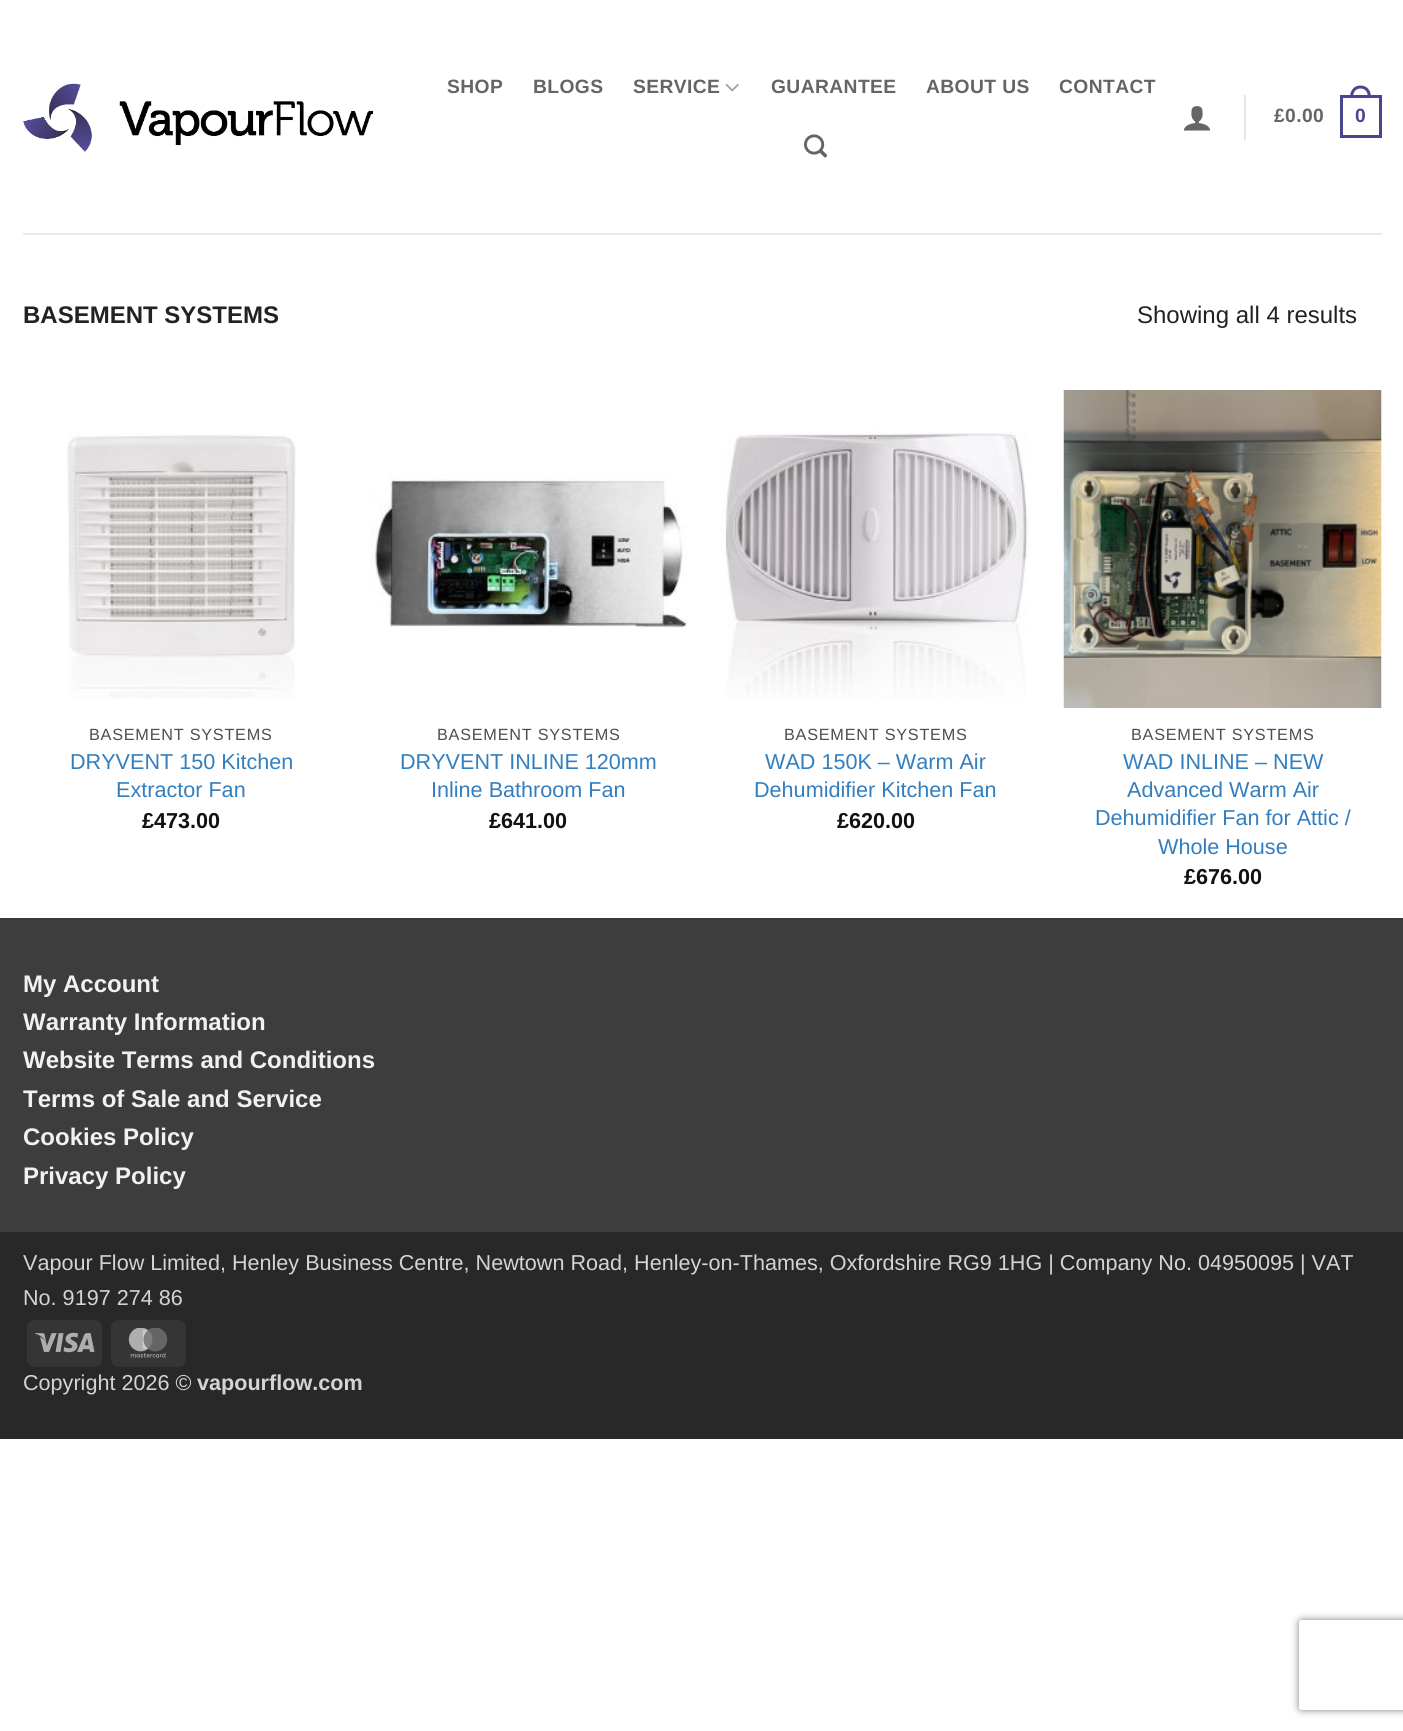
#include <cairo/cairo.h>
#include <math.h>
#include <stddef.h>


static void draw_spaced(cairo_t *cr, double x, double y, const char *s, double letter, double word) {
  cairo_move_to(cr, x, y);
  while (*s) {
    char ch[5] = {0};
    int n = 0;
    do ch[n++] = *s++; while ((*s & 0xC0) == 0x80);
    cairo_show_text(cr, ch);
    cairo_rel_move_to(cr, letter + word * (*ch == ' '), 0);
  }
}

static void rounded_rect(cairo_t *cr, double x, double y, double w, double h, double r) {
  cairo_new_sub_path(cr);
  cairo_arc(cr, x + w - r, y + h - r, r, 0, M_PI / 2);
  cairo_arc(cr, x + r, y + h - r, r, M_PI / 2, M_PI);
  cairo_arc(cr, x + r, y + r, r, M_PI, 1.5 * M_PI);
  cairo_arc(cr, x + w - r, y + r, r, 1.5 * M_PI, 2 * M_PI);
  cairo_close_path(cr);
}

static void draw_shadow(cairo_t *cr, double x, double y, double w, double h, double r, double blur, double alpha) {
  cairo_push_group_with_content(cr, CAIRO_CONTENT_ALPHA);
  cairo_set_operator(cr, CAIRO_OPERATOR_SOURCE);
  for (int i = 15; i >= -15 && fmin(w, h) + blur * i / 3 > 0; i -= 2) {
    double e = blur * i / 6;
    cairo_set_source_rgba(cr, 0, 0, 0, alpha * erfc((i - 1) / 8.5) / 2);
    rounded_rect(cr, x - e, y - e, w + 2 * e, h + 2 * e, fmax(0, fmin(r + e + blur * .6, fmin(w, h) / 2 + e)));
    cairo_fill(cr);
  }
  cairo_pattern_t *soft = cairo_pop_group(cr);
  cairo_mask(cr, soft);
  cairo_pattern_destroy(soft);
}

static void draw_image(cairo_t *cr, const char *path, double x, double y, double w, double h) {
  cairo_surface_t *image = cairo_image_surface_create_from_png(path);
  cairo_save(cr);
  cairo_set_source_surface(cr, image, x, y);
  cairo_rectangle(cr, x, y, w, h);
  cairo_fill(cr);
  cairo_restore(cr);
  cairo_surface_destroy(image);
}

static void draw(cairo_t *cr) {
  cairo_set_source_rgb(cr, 1, 1, 1);
  cairo_paint(cr);
  draw_image(cr, "images/1.png", 23, 83, 351, 69);
  draw_image(cr, "images/2.png", 725, 83, 14, 9);
  draw_image(cr, "images/3.png", 804, 134, 23, 24);
  draw_image(cr, "images/4.png", 1183, 106, 28, 25);
  cairo_set_source_rgb(cr, 230 / 255.0, 230 / 255.0, 230 / 255.0);
  cairo_rectangle(cr, 1244, 95, 2, 45);
  cairo_fill(cr);
  cairo_rectangle(cr, 1341.5, 96.5, 39, 40);
  cairo_set_source_rgb(cr, 72 / 255.0, 69 / 255.0, 145 / 255.0);
  cairo_set_line_width(cr, 3);
  cairo_stroke(cr);
  cairo_set_fill_rule(cr, CAIRO_FILL_RULE_EVEN_ODD);
  cairo_new_path(cr);
  cairo_move_to(cr, 1360.5, 85.5);
  cairo_curve_to(cr, 1367.5, 85.5, 1371, 91, 1371, 97.5);
  cairo_line_to(cr, 1350, 97.5);
  cairo_curve_to(cr, 1350, 91, 1353.5, 85.5, 1360.5, 85.5);
  cairo_close_path(cr);
  cairo_move_to(cr, 1360.5, 88.5);
  cairo_curve_to(cr, 1366, 88.5, 1368, 93, 1368, 97.5);
  cairo_line_to(cr, 1353, 97.5);
  cairo_curve_to(cr, 1353, 93, 1355, 88.5, 1360.5, 88.5);
  cairo_close_path(cr);
  cairo_fill(cr);
  cairo_set_source_rgb(cr, 233 / 255.0, 233 / 255.0, 233 / 255.0);
  cairo_rectangle(cr, 23, 233, 1359, 2);
  cairo_fill(cr);
  draw_image(cr, "images/5.png", 67, 434, 229, 265);
  draw_image(cr, "images/6.png", 369, 474, 318, 154);
  draw_image(cr, "images/7.png", 721, 431, 307, 268);
  draw_image(cr, "images/8.png", 1063, 390, 319, 318);
  cairo_set_source_rgb(cr, 61 / 255.0, 61 / 255.0, 61 / 255.0);
  cairo_rectangle(cr, 0, 920, 1403, 312);
  cairo_fill(cr);
  cairo_set_source_rgb(cr, 58 / 255.0, 58 / 255.0, 58 / 255.0);
  cairo_rectangle(cr, 0, 918, 1403, 2);
  cairo_fill(cr);
  cairo_set_source_rgb(cr, 40 / 255.0, 40 / 255.0, 40 / 255.0);
  cairo_rectangle(cr, 0, 1232, 1403, 207);
  cairo_fill(cr);
  cairo_set_source_rgb(cr, 53 / 255.0, 53 / 255.0, 53 / 255.0);
  rounded_rect(cr, 27, 1320, 75, 47, 8);
  cairo_fill(cr);
  draw_image(cr, "images/9.png", 35, 1332, 60, 21);
  rounded_rect(cr, 111, 1320, 75, 47, 8);
  cairo_fill(cr);
  draw_image(cr, "images/10.png", 128, 1328, 40, 30);
  cairo_save(cr);
  cairo_new_path(cr);
  cairo_move_to(cr, 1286, 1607);
  cairo_line_to(cr, 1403, 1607);
  cairo_line_to(cr, 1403, 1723);
  cairo_line_to(cr, 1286, 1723);
  cairo_close_path(cr);
  cairo_move_to(cr, 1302, 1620);
  cairo_line_to(cr, 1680, 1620);
  cairo_curve_to(cr, 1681.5, 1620, 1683, 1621.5, 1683, 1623);
  cairo_line_to(cr, 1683, 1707);
  cairo_curve_to(cr, 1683, 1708.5, 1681.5, 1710, 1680, 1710);
  cairo_line_to(cr, 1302, 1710);
  cairo_curve_to(cr, 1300.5, 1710, 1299, 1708.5, 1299, 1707);
  cairo_line_to(cr, 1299, 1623);
  cairo_curve_to(cr, 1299, 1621.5, 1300.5, 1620, 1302, 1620);
  cairo_close_path(cr);
  cairo_clip(cr);
  cairo_set_source_rgb(cr, 128 / 255.0, 128 / 255.0, 128 / 255.0);
  draw_shadow(cr, 1299, 1620, 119, 90, 3, 4, 1);
  cairo_restore(cr);
  cairo_select_font_face(cr, "Liberation Sans", CAIRO_FONT_SLANT_NORMAL, CAIRO_FONT_WEIGHT_BOLD);
  cairo_set_font_size(cr, 19.25);
  cairo_set_source_rgb(cr, 101 / 255.0, 101 / 255.0, 101 / 255.0);
  draw_spaced(cr, 447, 93, "SHOP", 0.4, 0);
  draw_spaced(cr, 533, 93, "BLOGS", 0.4, 0);
  draw_spaced(cr, 633, 93, "SERVICE", 0.4, 0);
  draw_spaced(cr, 771, 93, "GUARANTEE", 0.4, 0);
  draw_spaced(cr, 926, 93, "ABOUT US", 0.4, 0);
  draw_spaced(cr, 1059, 93, "CONTACT", 0.4, 0);
  draw_spaced(cr, 1274, 122, "£0.00", 0.4, 0);
  cairo_set_source_rgb(cr, 72 / 255.0, 69 / 255.0, 145 / 255.0);
  draw_spaced(cr, 1355, 122, "0", 0.4, 0);
  cairo_set_font_size(cr, 24);
  cairo_set_source_rgb(cr, 34 / 255.0, 34 / 255.0, 34 / 255.0);
  cairo_move_to(cr, 23, 323);
  cairo_show_text(cr, "BASEMENT SYSTEMS");
  cairo_select_font_face(cr, "Liberation Sans", CAIRO_FONT_SLANT_NORMAL, CAIRO_FONT_WEIGHT_NORMAL);
  cairo_move_to(cr, 1137, 323);
  cairo_show_text(cr, "Showing all 4 results");
  cairo_set_font_size(cr, 16.25);
  cairo_set_source_rgb(cr, 78 / 255.0, 78 / 255.0, 78 / 255.0);
  draw_spaced(cr, 89, 740, "BASEMENT SYSTEMS", 0.75, 0);
  cairo_set_font_size(cr, 21.6);
  cairo_set_source_rgb(cr, 51 / 255.0, 126 / 255.0, 191 / 255.0);
  cairo_move_to(cr, 70, 769);
  cairo_show_text(cr, "DRYVENT 150 Kitchen");
  cairo_move_to(cr, 116, 797);
  cairo_show_text(cr, "Extractor Fan");
  cairo_select_font_face(cr, "Liberation Sans", CAIRO_FONT_SLANT_NORMAL, CAIRO_FONT_WEIGHT_BOLD);
  cairo_set_source_rgb(cr, 17 / 255.0, 17 / 255.0, 17 / 255.0);
  cairo_move_to(cr, 142, 828);
  cairo_show_text(cr, "£473.00");
  cairo_select_font_face(cr, "Liberation Sans", CAIRO_FONT_SLANT_NORMAL, CAIRO_FONT_WEIGHT_NORMAL);
  cairo_set_font_size(cr, 16.25);
  cairo_set_source_rgb(cr, 78 / 255.0, 78 / 255.0, 78 / 255.0);
  draw_spaced(cr, 437, 740, "BASEMENT SYSTEMS", 0.75, 0);
  cairo_set_font_size(cr, 21.6);
  cairo_set_source_rgb(cr, 51 / 255.0, 126 / 255.0, 191 / 255.0);
  cairo_move_to(cr, 400, 769);
  cairo_show_text(cr, "DRYVENT INLINE 120mm");
  cairo_move_to(cr, 431, 797);
  cairo_show_text(cr, "Inline Bathroom Fan");
  cairo_select_font_face(cr, "Liberation Sans", CAIRO_FONT_SLANT_NORMAL, CAIRO_FONT_WEIGHT_BOLD);
  cairo_set_source_rgb(cr, 17 / 255.0, 17 / 255.0, 17 / 255.0);
  cairo_move_to(cr, 489, 828);
  cairo_show_text(cr, "£641.00");
  cairo_select_font_face(cr, "Liberation Sans", CAIRO_FONT_SLANT_NORMAL, CAIRO_FONT_WEIGHT_NORMAL);
  cairo_set_font_size(cr, 16.25);
  cairo_set_source_rgb(cr, 78 / 255.0, 78 / 255.0, 78 / 255.0);
  draw_spaced(cr, 784, 740, "BASEMENT SYSTEMS", 0.75, 0);
  cairo_set_font_size(cr, 21.6);
  cairo_set_source_rgb(cr, 51 / 255.0, 126 / 255.0, 191 / 255.0);
  cairo_move_to(cr, 765, 769);
  cairo_show_text(cr, "WAD 150K – Warm Air");
  cairo_move_to(cr, 754, 797);
  cairo_show_text(cr, "Dehumidifier Kitchen Fan");
  cairo_select_font_face(cr, "Liberation Sans", CAIRO_FONT_SLANT_NORMAL, CAIRO_FONT_WEIGHT_BOLD);
  cairo_set_source_rgb(cr, 17 / 255.0, 17 / 255.0, 17 / 255.0);
  cairo_move_to(cr, 837, 828);
  cairo_show_text(cr, "£620.00");
  cairo_select_font_face(cr, "Liberation Sans", CAIRO_FONT_SLANT_NORMAL, CAIRO_FONT_WEIGHT_NORMAL);
  cairo_set_font_size(cr, 16.25);
  cairo_set_source_rgb(cr, 78 / 255.0, 78 / 255.0, 78 / 255.0);
  draw_spaced(cr, 1131, 740, "BASEMENT SYSTEMS", 0.75, 0);
  cairo_set_font_size(cr, 21.6);
  cairo_set_source_rgb(cr, 51 / 255.0, 126 / 255.0, 191 / 255.0);
  cairo_move_to(cr, 1123, 769);
  cairo_show_text(cr, "WAD INLINE – NEW");
  cairo_move_to(cr, 1127, 797);
  cairo_show_text(cr, "Advanced Warm Air");
  cairo_move_to(cr, 1095, 825);
  cairo_show_text(cr, "Dehumidifier Fan for Attic /");
  cairo_move_to(cr, 1158, 854);
  cairo_show_text(cr, "Whole House");
  cairo_select_font_face(cr, "Liberation Sans", CAIRO_FONT_SLANT_NORMAL, CAIRO_FONT_WEIGHT_BOLD);
  cairo_set_source_rgb(cr, 17 / 255.0, 17 / 255.0, 17 / 255.0);
  cairo_move_to(cr, 1184, 884);
  cairo_show_text(cr, "£676.00");
  cairo_set_font_size(cr, 24);
  cairo_set_source_rgb(cr, 241 / 255.0, 241 / 255.0, 241 / 255.0);
  cairo_move_to(cr, 23, 992);
  cairo_show_text(cr, "My Account");
  cairo_move_to(cr, 23, 1030);
  cairo_show_text(cr, "Warranty Information");
  cairo_move_to(cr, 23, 1068);
  cairo_show_text(cr, "Website Terms and Conditions");
  cairo_move_to(cr, 23, 1107);
  cairo_show_text(cr, "Terms of Sale and Service");
  cairo_move_to(cr, 23, 1145);
  cairo_show_text(cr, "Cookies Policy");
  cairo_move_to(cr, 23, 1184);
  cairo_show_text(cr, "Privacy Policy");
  cairo_select_font_face(cr, "Liberation Sans", CAIRO_FONT_SLANT_NORMAL, CAIRO_FONT_WEIGHT_NORMAL);
  cairo_set_font_size(cr, 21.6);
  cairo_set_source_rgb(cr, 212 / 255.0, 212 / 255.0, 212 / 255.0);
  cairo_move_to(cr, 23, 1270);
  cairo_show_text(cr, "Vapour Flow Limited, Henley Business Centre, Newtown Road, Henley-on-Thames, Oxfordshire RG9 1HG | Company No. 04950095 | VAT");
  cairo_move_to(cr, 23, 1305);
  cairo_show_text(cr, "No. 9197 274 86");
  cairo_move_to(cr, 23, 1390);
  cairo_show_text(cr, "Copyright 2026 ©");
  cairo_select_font_face(cr, "Liberation Sans", CAIRO_FONT_SLANT_NORMAL, CAIRO_FONT_WEIGHT_BOLD);
  cairo_move_to(cr, 197, 1390);
  cairo_show_text(cr, "vapourflow.com");
}

int main(void) {
  cairo_surface_t *surface = cairo_image_surface_create(CAIRO_FORMAT_RGB24, 1403, 1731);
  cairo_t *cr = cairo_create(surface);
  cairo_font_options_t *options = cairo_font_options_create();
  cairo_font_options_set_hint_metrics(options, CAIRO_HINT_METRICS_OFF);
  cairo_font_options_set_hint_style(options, CAIRO_HINT_STYLE_NONE);
  cairo_set_font_options(cr, options);
  cairo_set_miter_limit(cr, 4);
  draw(cr);
  cairo_surface_write_to_png(surface, "out.png");
  cairo_font_options_destroy(options);
  cairo_destroy(cr);
  cairo_surface_destroy(surface);
  return 0;
}
